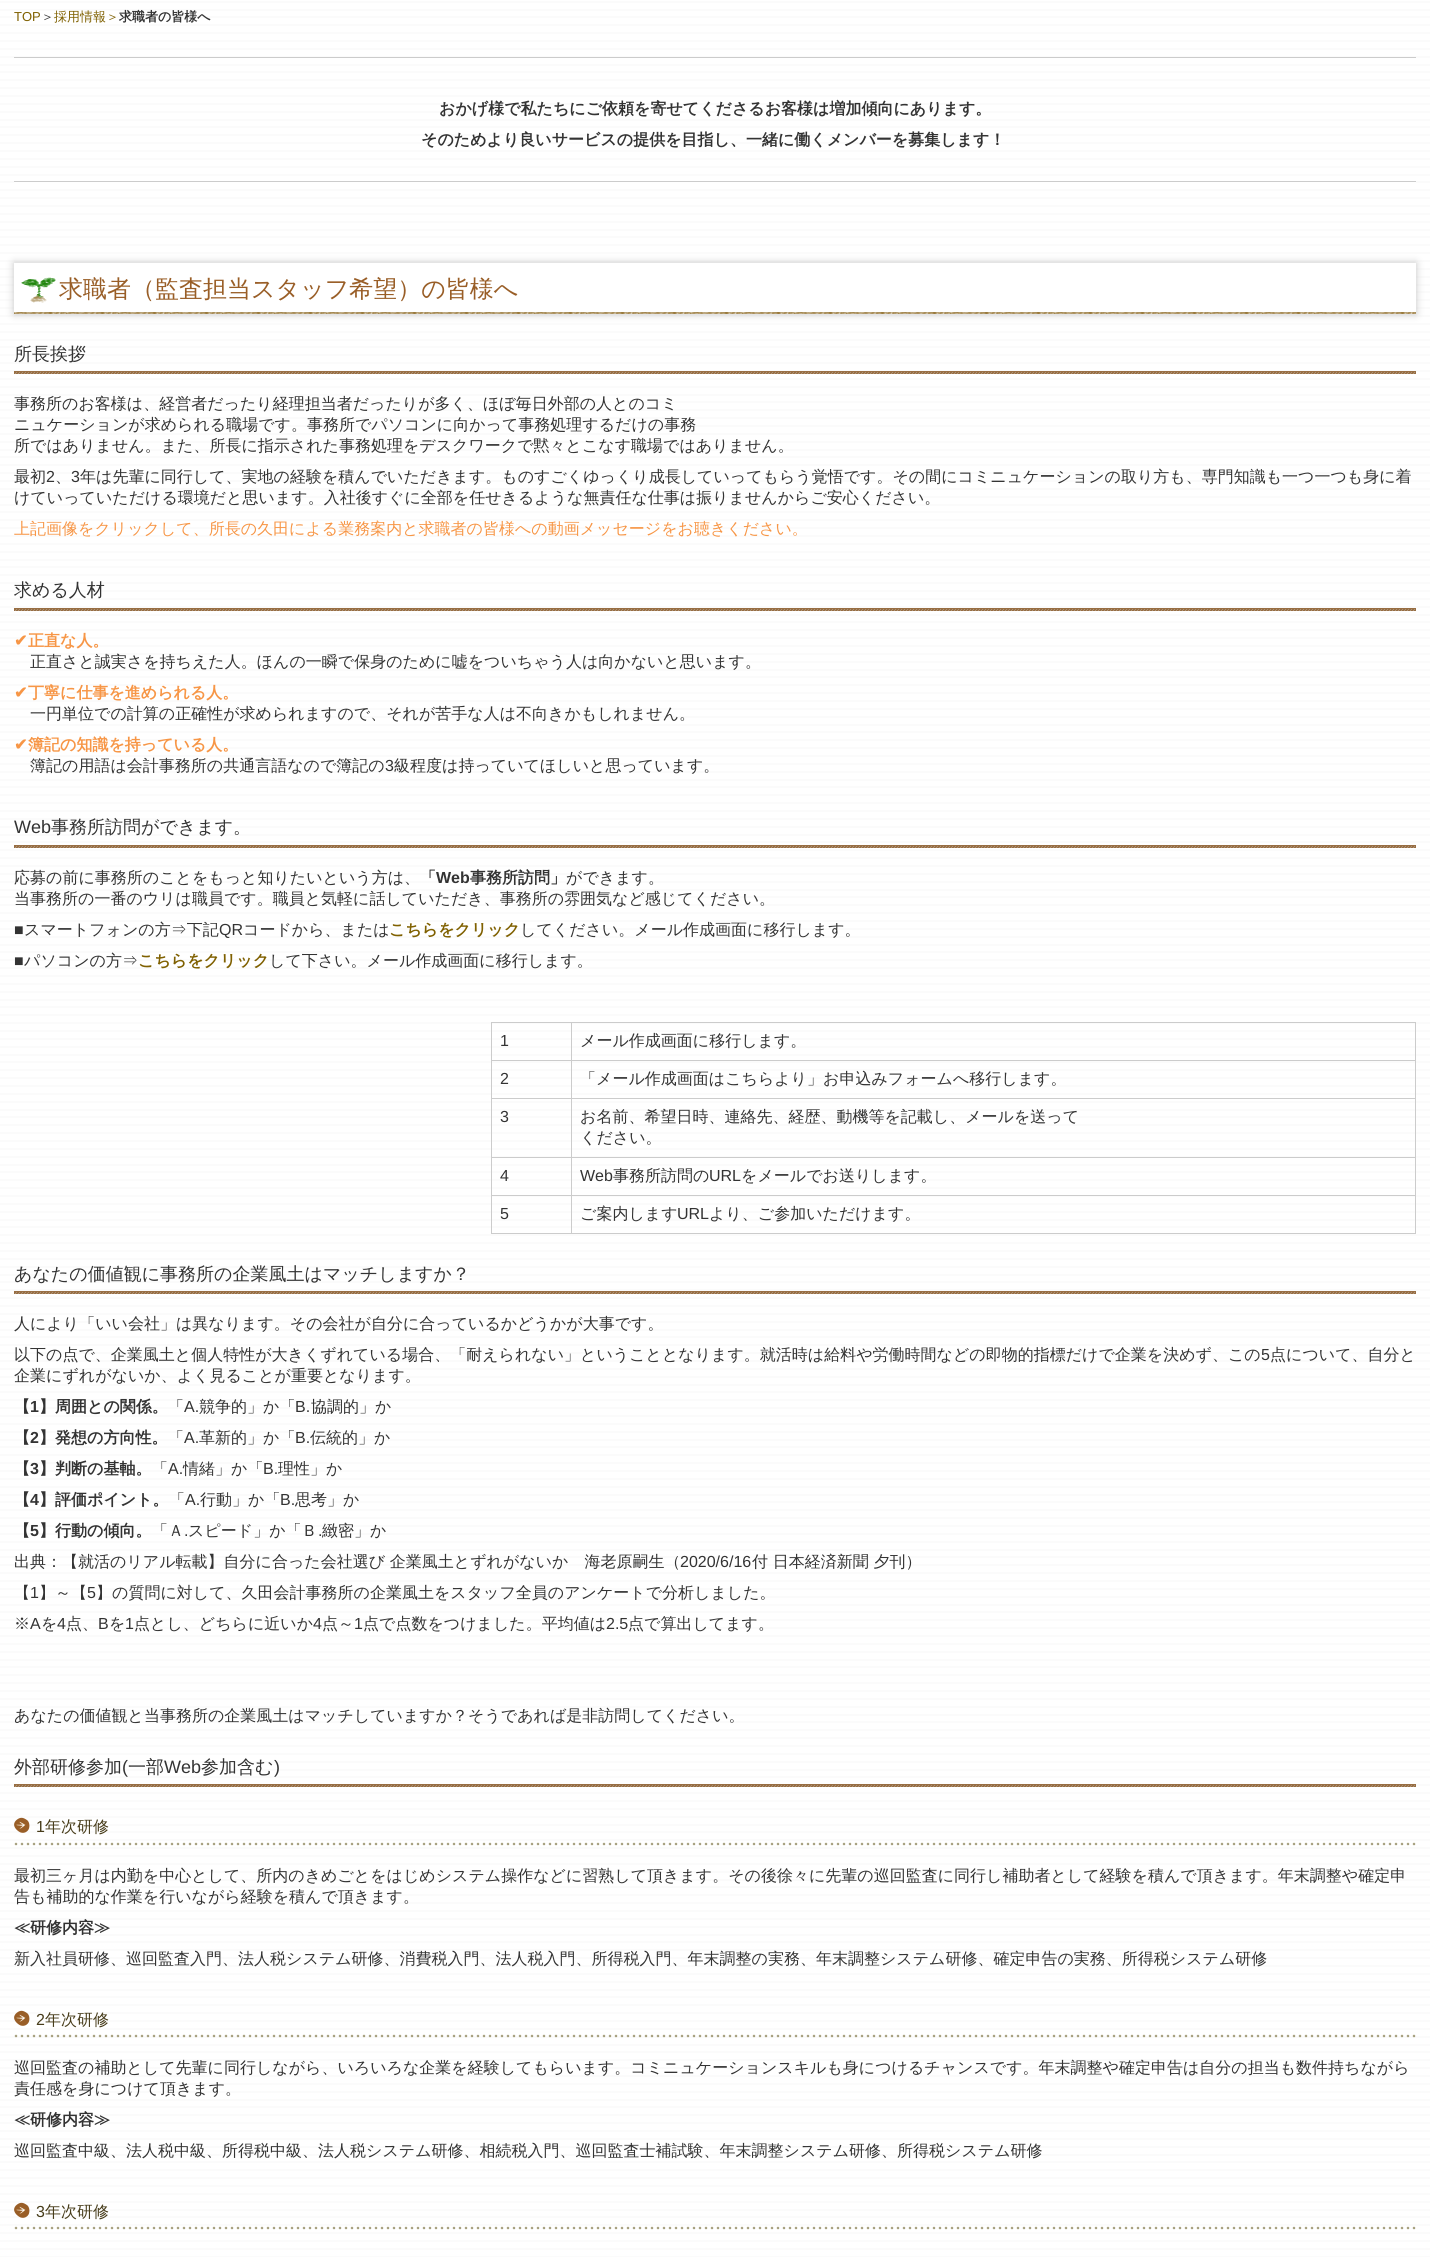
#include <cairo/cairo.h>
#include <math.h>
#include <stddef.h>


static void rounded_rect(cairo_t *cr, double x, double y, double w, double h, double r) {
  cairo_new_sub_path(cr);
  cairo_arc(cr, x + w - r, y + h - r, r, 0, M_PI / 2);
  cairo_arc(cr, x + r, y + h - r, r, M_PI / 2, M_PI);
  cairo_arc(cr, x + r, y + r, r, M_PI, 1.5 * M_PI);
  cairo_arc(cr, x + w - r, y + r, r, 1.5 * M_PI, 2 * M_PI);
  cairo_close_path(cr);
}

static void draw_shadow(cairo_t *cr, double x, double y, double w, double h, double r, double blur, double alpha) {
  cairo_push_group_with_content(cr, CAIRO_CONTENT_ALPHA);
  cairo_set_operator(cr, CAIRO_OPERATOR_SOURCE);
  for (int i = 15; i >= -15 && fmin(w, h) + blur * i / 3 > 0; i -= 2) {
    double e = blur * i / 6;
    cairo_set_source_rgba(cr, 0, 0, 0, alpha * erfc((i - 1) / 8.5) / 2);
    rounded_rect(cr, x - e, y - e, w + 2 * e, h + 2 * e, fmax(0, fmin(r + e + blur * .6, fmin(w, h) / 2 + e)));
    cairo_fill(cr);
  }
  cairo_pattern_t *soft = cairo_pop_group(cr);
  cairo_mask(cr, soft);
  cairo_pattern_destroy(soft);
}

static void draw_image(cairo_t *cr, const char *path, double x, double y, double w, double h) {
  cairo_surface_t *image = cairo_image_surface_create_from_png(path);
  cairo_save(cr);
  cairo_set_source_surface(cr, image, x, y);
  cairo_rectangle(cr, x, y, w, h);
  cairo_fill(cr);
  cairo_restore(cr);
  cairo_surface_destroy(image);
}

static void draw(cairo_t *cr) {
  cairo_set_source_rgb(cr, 1, 1, 1);
  cairo_paint(cr);
  draw_image(cr, "images/1.png", 0, 1, 1430, 2256);
  cairo_set_source_rgb(cr, 204 / 255.0, 204 / 255.0, 204 / 255.0);
  cairo_rectangle(cr, 14, 57, 1402, 1);
  cairo_fill(cr);
  cairo_rectangle(cr, 14, 181, 1402, 1);
  cairo_fill(cr);
  cairo_set_source_rgb(cr, 1, 1, 1);
  cairo_rectangle(cr, 14, 182, 1402, 1);
  cairo_fill(cr);
  cairo_set_source_rgb(cr, 195 / 255.0, 195 / 255.0, 195 / 255.0);
  draw_shadow(cr, 14, 263, 1402, 51, 0, 4, 1);
  cairo_set_source_rgb(cr, 1, 1, 1);
  cairo_rectangle(cr, 14, 263, 1402, 51);
  cairo_fill(cr);
  draw_image(cr, "images/2.png", 14, 312, 1402, 2);
  draw_image(cr, "images/3.png", 21, 277, 35, 26);
  draw_image(cr, "images/4.png", 14, 371, 1402, 3);
  draw_image(cr, "images/4.png", 14, 608, 1402, 3);
  draw_image(cr, "images/4.png", 14, 845, 1402, 3);
  cairo_set_source_rgb(cr, 204 / 255.0, 204 / 255.0, 204 / 255.0);
  cairo_rectangle(cr, 571, 1022, 845, 1);
  cairo_fill(cr);
  cairo_rectangle(cr, 571, 1060, 845, 1);
  cairo_fill(cr);
  cairo_rectangle(cr, 571, 1098, 845, 1);
  cairo_fill(cr);
  cairo_rectangle(cr, 571, 1157, 845, 1);
  cairo_fill(cr);
  cairo_rectangle(cr, 571, 1195, 845, 1);
  cairo_fill(cr);
  cairo_rectangle(cr, 1415, 1195, 1, 39);
  cairo_fill(cr);
  cairo_rectangle(cr, 571, 1233, 845, 1);
  cairo_fill(cr);
  cairo_rectangle(cr, 571, 1195, 1, 39);
  cairo_fill(cr);
  cairo_rectangle(cr, 491, 1195, 81, 1);
  cairo_fill(cr);
  cairo_rectangle(cr, 571, 1157, 1, 39);
  cairo_fill(cr);
  cairo_rectangle(cr, 491, 1157, 81, 1);
  cairo_fill(cr);
  cairo_rectangle(cr, 571, 1098, 1, 60);
  cairo_fill(cr);
  cairo_rectangle(cr, 491, 1098, 81, 1);
  cairo_fill(cr);
  cairo_rectangle(cr, 571, 1060, 1, 39);
  cairo_fill(cr);
  cairo_rectangle(cr, 491, 1060, 81, 1);
  cairo_fill(cr);
  cairo_rectangle(cr, 571, 1022, 1, 39);
  cairo_fill(cr);
  cairo_rectangle(cr, 491, 1022, 81, 1);
  cairo_fill(cr);
  cairo_rectangle(cr, 491, 1233, 81, 1);
  cairo_fill(cr);
  cairo_rectangle(cr, 491, 1195, 1, 39);
  cairo_fill(cr);
  cairo_rectangle(cr, 491, 1157, 1, 39);
  cairo_fill(cr);
  cairo_rectangle(cr, 491, 1098, 1, 60);
  cairo_fill(cr);
  cairo_rectangle(cr, 491, 1060, 1, 39);
  cairo_fill(cr);
  cairo_rectangle(cr, 491, 1022, 1, 39);
  cairo_fill(cr);
  cairo_rectangle(cr, 1415, 1157, 1, 39);
  cairo_fill(cr);
  cairo_rectangle(cr, 1415, 1098, 1, 60);
  cairo_fill(cr);
  cairo_rectangle(cr, 1415, 1060, 1, 39);
  cairo_fill(cr);
  cairo_rectangle(cr, 1415, 1022, 1, 39);
  cairo_fill(cr);
  draw_image(cr, "images/4.png", 14, 1291, 1402, 3);
  draw_image(cr, "images/4.png", 14, 1784, 1402, 3);
  draw_image(cr, "images/5.png", 14, 1842, 1402, 4);
  draw_image(cr, "images/6.png", 14, 1817, 16, 16);
  draw_image(cr, "images/7.png", 14, 2034, 1402, 4);
  draw_image(cr, "images/8.png", 14, 2010, 16, 16);
  draw_image(cr, "images/5.png", 14, 2226, 1402, 4);
  draw_image(cr, "images/6.png", 14, 2202, 16, 16);
  cairo_select_font_face(cr, "Liberation Sans", CAIRO_FONT_SLANT_NORMAL, CAIRO_FONT_WEIGHT_NORMAL);
  cairo_set_font_size(cr, 13);
  cairo_set_source_rgb(cr, 127 / 255.0, 96 / 255.0, 0);
  cairo_move_to(cr, 14, 21);
  cairo_show_text(cr, "TOP");
  cairo_select_font_face(cr, "WenQuanYi Zen Hei Medium", CAIRO_FONT_SLANT_NORMAL, CAIRO_FONT_WEIGHT_NORMAL);
  cairo_set_source_rgb(cr, 51 / 255.0, 51 / 255.0, 51 / 255.0);
  cairo_move_to(cr, 41, 21);
  cairo_show_text(cr, "＞");
  cairo_set_source_rgb(cr, 127 / 255.0, 96 / 255.0, 0);
  cairo_move_to(cr, 54, 21);
  cairo_show_text(cr, "採用情報＞");
  cairo_select_font_face(cr, "WenQuanYi Zen Hei", CAIRO_FONT_SLANT_NORMAL, CAIRO_FONT_WEIGHT_BOLD);
  cairo_set_source_rgb(cr, 51 / 255.0, 51 / 255.0, 51 / 255.0);
  cairo_move_to(cr, 119, 21);
  cairo_show_text(cr, "求職者の皆様へ");
  cairo_set_font_size(cr, 16);
  cairo_move_to(cr, 439, 114);
  cairo_show_text(cr, "おかげ様で私たちにご依頼を寄せてくださるお客様は増加傾向にあります。");
  cairo_move_to(cr, 421, 145);
  cairo_show_text(cr, "そのためより良いサービスの提供を目指し、一緒に働くメンバーを募集します！");
  cairo_select_font_face(cr, "WenQuanYi Zen Hei Medium", CAIRO_FONT_SLANT_NORMAL, CAIRO_FONT_WEIGHT_NORMAL);
  cairo_set_font_size(cr, 24);
  cairo_set_source_rgb(cr, 153 / 255.0, 94 / 255.0, 39 / 255.0);
  cairo_move_to(cr, 59, 297);
  cairo_show_text(cr, "求職者（監査担当スタッフ希望）の皆様へ");
  cairo_set_font_size(cr, 18);
  cairo_set_source_rgb(cr, 51 / 255.0, 51 / 255.0, 51 / 255.0);
  cairo_move_to(cr, 14, 360);
  cairo_show_text(cr, "所長挨拶");
  cairo_set_font_size(cr, 16);
  cairo_move_to(cr, 14, 409);
  cairo_show_text(cr, "事務所のお客様は、経営者だったり経理担当者だったりが多く、ほぼ毎日外部の人とのコミ");
  cairo_move_to(cr, 14, 430);
  cairo_show_text(cr, "ニュケーションが求められる職場です。事務所でパソコンに向かって事務処理するだけの事務");
  cairo_move_to(cr, 14, 451);
  cairo_show_text(cr, "所ではありません。また、所長に指示された事務処理をデスクワークで黙々とこなす職場ではありません。");
  cairo_move_to(cr, 14, 482);
  cairo_show_text(cr, "最初");
  cairo_select_font_face(cr, "Liberation Sans", CAIRO_FONT_SLANT_NORMAL, CAIRO_FONT_WEIGHT_NORMAL);
  cairo_move_to(cr, 46, 482);
  cairo_show_text(cr, "2");
  cairo_select_font_face(cr, "WenQuanYi Zen Hei Medium", CAIRO_FONT_SLANT_NORMAL, CAIRO_FONT_WEIGHT_NORMAL);
  cairo_move_to(cr, 55, 482);
  cairo_show_text(cr, "、");
  cairo_select_font_face(cr, "Liberation Sans", CAIRO_FONT_SLANT_NORMAL, CAIRO_FONT_WEIGHT_NORMAL);
  cairo_move_to(cr, 71, 482);
  cairo_show_text(cr, "3");
  cairo_select_font_face(cr, "WenQuanYi Zen Hei Medium", CAIRO_FONT_SLANT_NORMAL, CAIRO_FONT_WEIGHT_NORMAL);
  cairo_move_to(cr, 80, 482);
  cairo_show_text(cr, "年は先輩に同行して、実地の経験を積んでいただきます。ものすごくゆっくり成長していってもらう覚悟です。その間にコミニュケーションの取り方も、専門知識も一つ一つも身に着");
  cairo_move_to(cr, 14, 503);
  cairo_show_text(cr, "けていっていただける環境だと思います。入社後すぐに全部を任せきるような無責任な仕事は振りませんからご安心ください。");
  cairo_set_source_rgb(cr, 247 / 255.0, 150 / 255.0, 70 / 255.0);
  cairo_move_to(cr, 14, 534);
  cairo_show_text(cr, "上記画像をクリックして、所長の久田による業務案内と求職者の皆様への動画メッセージをお聴きください。");
  cairo_set_font_size(cr, 18);
  cairo_set_source_rgb(cr, 51 / 255.0, 51 / 255.0, 51 / 255.0);
  cairo_move_to(cr, 14, 596);
  cairo_show_text(cr, "求める人材");
  cairo_select_font_face(cr, "DejaVu Sans", CAIRO_FONT_SLANT_NORMAL, CAIRO_FONT_WEIGHT_BOLD);
  cairo_set_font_size(cr, 16);
  cairo_set_source_rgb(cr, 247 / 255.0, 150 / 255.0, 70 / 255.0);
  cairo_move_to(cr, 14, 646);
  cairo_show_text(cr, "✔");
  cairo_select_font_face(cr, "WenQuanYi Zen Hei", CAIRO_FONT_SLANT_NORMAL, CAIRO_FONT_WEIGHT_BOLD);
  cairo_move_to(cr, 28, 646);
  cairo_show_text(cr, "正直な人。");
  cairo_select_font_face(cr, "WenQuanYi Zen Hei Medium", CAIRO_FONT_SLANT_NORMAL, CAIRO_FONT_WEIGHT_NORMAL);
  cairo_set_source_rgb(cr, 51 / 255.0, 51 / 255.0, 51 / 255.0);
  cairo_move_to(cr, 30, 667);
  cairo_show_text(cr, "正直さと誠実さを持ちえた人。ほんの一瞬で保身のために嘘をついちゃう人は向かないと思います。");
  cairo_select_font_face(cr, "DejaVu Sans", CAIRO_FONT_SLANT_NORMAL, CAIRO_FONT_WEIGHT_BOLD);
  cairo_set_source_rgb(cr, 247 / 255.0, 150 / 255.0, 70 / 255.0);
  cairo_move_to(cr, 14, 698);
  cairo_show_text(cr, "✔");
  cairo_select_font_face(cr, "WenQuanYi Zen Hei", CAIRO_FONT_SLANT_NORMAL, CAIRO_FONT_WEIGHT_BOLD);
  cairo_move_to(cr, 28, 698);
  cairo_show_text(cr, "丁寧に仕事を進められる人。");
  cairo_select_font_face(cr, "WenQuanYi Zen Hei Medium", CAIRO_FONT_SLANT_NORMAL, CAIRO_FONT_WEIGHT_NORMAL);
  cairo_set_source_rgb(cr, 51 / 255.0, 51 / 255.0, 51 / 255.0);
  cairo_move_to(cr, 30, 719);
  cairo_show_text(cr, "一円単位での計算の正確性が求められますので、それが苦手な人は不向きかもしれません。");
  cairo_select_font_face(cr, "DejaVu Sans", CAIRO_FONT_SLANT_NORMAL, CAIRO_FONT_WEIGHT_BOLD);
  cairo_set_source_rgb(cr, 247 / 255.0, 150 / 255.0, 70 / 255.0);
  cairo_move_to(cr, 14, 750);
  cairo_show_text(cr, "✔");
  cairo_select_font_face(cr, "WenQuanYi Zen Hei", CAIRO_FONT_SLANT_NORMAL, CAIRO_FONT_WEIGHT_BOLD);
  cairo_move_to(cr, 28, 750);
  cairo_show_text(cr, "簿記の知識を持っている人。");
  cairo_select_font_face(cr, "WenQuanYi Zen Hei Medium", CAIRO_FONT_SLANT_NORMAL, CAIRO_FONT_WEIGHT_NORMAL);
  cairo_set_source_rgb(cr, 51 / 255.0, 51 / 255.0, 51 / 255.0);
  cairo_move_to(cr, 30, 771);
  cairo_show_text(cr, "簿記の用語は会計事務所の共通言語なので簿記の");
  cairo_select_font_face(cr, "Liberation Sans", CAIRO_FONT_SLANT_NORMAL, CAIRO_FONT_WEIGHT_NORMAL);
  cairo_move_to(cr, 385, 771);
  cairo_show_text(cr, "3");
  cairo_select_font_face(cr, "WenQuanYi Zen Hei Medium", CAIRO_FONT_SLANT_NORMAL, CAIRO_FONT_WEIGHT_NORMAL);
  cairo_move_to(cr, 394, 771);
  cairo_show_text(cr, "級程度は持っていてほしいと思っています。");
  cairo_select_font_face(cr, "Liberation Sans", CAIRO_FONT_SLANT_NORMAL, CAIRO_FONT_WEIGHT_NORMAL);
  cairo_set_font_size(cr, 18);
  cairo_move_to(cr, 14, 833);
  cairo_show_text(cr, "Web");
  cairo_select_font_face(cr, "WenQuanYi Zen Hei Medium", CAIRO_FONT_SLANT_NORMAL, CAIRO_FONT_WEIGHT_NORMAL);
  cairo_move_to(cr, 51, 833);
  cairo_show_text(cr, "事務所訪問ができます。");
  cairo_set_font_size(cr, 16);
  cairo_move_to(cr, 14, 883);
  cairo_show_text(cr, "応募の前に事務所のことをもっと知りたいという方は、");
  cairo_select_font_face(cr, "WenQuanYi Zen Hei", CAIRO_FONT_SLANT_NORMAL, CAIRO_FONT_WEIGHT_BOLD);
  cairo_move_to(cr, 420, 883);
  cairo_show_text(cr, "「");
  cairo_select_font_face(cr, "Liberation Sans", CAIRO_FONT_SLANT_NORMAL, CAIRO_FONT_WEIGHT_BOLD);
  cairo_move_to(cr, 436, 883);
  cairo_show_text(cr, "Web");
  cairo_select_font_face(cr, "WenQuanYi Zen Hei", CAIRO_FONT_SLANT_NORMAL, CAIRO_FONT_WEIGHT_BOLD);
  cairo_move_to(cr, 470, 883);
  cairo_show_text(cr, "事務所訪問」");
  cairo_select_font_face(cr, "WenQuanYi Zen Hei Medium", CAIRO_FONT_SLANT_NORMAL, CAIRO_FONT_WEIGHT_NORMAL);
  cairo_move_to(cr, 566, 883);
  cairo_show_text(cr, "ができます。");
  cairo_move_to(cr, 14, 904);
  cairo_show_text(cr, "当事務所の一番のウリは職員です。職員と気軽に話していただき、事務所の雰囲気など感じてください。");
  cairo_select_font_face(cr, "Liberation Sans", CAIRO_FONT_SLANT_NORMAL, CAIRO_FONT_WEIGHT_NORMAL);
  cairo_move_to(cr, 14, 935);
  cairo_show_text(cr, "■");
  cairo_select_font_face(cr, "WenQuanYi Zen Hei Medium", CAIRO_FONT_SLANT_NORMAL, CAIRO_FONT_WEIGHT_NORMAL);
  cairo_move_to(cr, 24, 935);
  cairo_show_text(cr, "スマートフォンの方⇒下記");
  cairo_select_font_face(cr, "Liberation Sans", CAIRO_FONT_SLANT_NORMAL, CAIRO_FONT_WEIGHT_NORMAL);
  cairo_move_to(cr, 219, 935);
  cairo_show_text(cr, "QR");
  cairo_select_font_face(cr, "WenQuanYi Zen Hei Medium", CAIRO_FONT_SLANT_NORMAL, CAIRO_FONT_WEIGHT_NORMAL);
  cairo_move_to(cr, 243, 935);
  cairo_show_text(cr, "コードから、または");
  cairo_select_font_face(cr, "WenQuanYi Zen Hei", CAIRO_FONT_SLANT_NORMAL, CAIRO_FONT_WEIGHT_BOLD);
  cairo_set_source_rgb(cr, 127 / 255.0, 96 / 255.0, 0);
  cairo_move_to(cr, 389, 935);
  cairo_show_text(cr, "こちらをクリック");
  cairo_select_font_face(cr, "WenQuanYi Zen Hei Medium", CAIRO_FONT_SLANT_NORMAL, CAIRO_FONT_WEIGHT_NORMAL);
  cairo_set_source_rgb(cr, 51 / 255.0, 51 / 255.0, 51 / 255.0);
  cairo_move_to(cr, 520, 935);
  cairo_show_text(cr, "してください。メール作成画面に移行します。");
  cairo_select_font_face(cr, "Liberation Sans", CAIRO_FONT_SLANT_NORMAL, CAIRO_FONT_WEIGHT_NORMAL);
  cairo_move_to(cr, 14, 966);
  cairo_show_text(cr, "■");
  cairo_select_font_face(cr, "WenQuanYi Zen Hei Medium", CAIRO_FONT_SLANT_NORMAL, CAIRO_FONT_WEIGHT_NORMAL);
  cairo_move_to(cr, 24, 966);
  cairo_show_text(cr, "パソコンの方⇒");
  cairo_select_font_face(cr, "WenQuanYi Zen Hei", CAIRO_FONT_SLANT_NORMAL, CAIRO_FONT_WEIGHT_BOLD);
  cairo_set_source_rgb(cr, 127 / 255.0, 96 / 255.0, 0);
  cairo_move_to(cr, 138, 966);
  cairo_show_text(cr, "こちらをクリック");
  cairo_select_font_face(cr, "WenQuanYi Zen Hei Medium", CAIRO_FONT_SLANT_NORMAL, CAIRO_FONT_WEIGHT_NORMAL);
  cairo_set_source_rgb(cr, 51 / 255.0, 51 / 255.0, 51 / 255.0);
  cairo_move_to(cr, 269, 966);
  cairo_show_text(cr, "して下さい。メール作成画面に移行します。");
  cairo_select_font_face(cr, "Liberation Sans", CAIRO_FONT_SLANT_NORMAL, CAIRO_FONT_WEIGHT_NORMAL);
  cairo_move_to(cr, 500, 1046);
  cairo_show_text(cr, "1");
  cairo_select_font_face(cr, "WenQuanYi Zen Hei Medium", CAIRO_FONT_SLANT_NORMAL, CAIRO_FONT_WEIGHT_NORMAL);
  cairo_move_to(cr, 580, 1046);
  cairo_show_text(cr, "メール作成画面に移行します。");
  cairo_select_font_face(cr, "Liberation Sans", CAIRO_FONT_SLANT_NORMAL, CAIRO_FONT_WEIGHT_NORMAL);
  cairo_move_to(cr, 500, 1084);
  cairo_show_text(cr, "2");
  cairo_select_font_face(cr, "WenQuanYi Zen Hei Medium", CAIRO_FONT_SLANT_NORMAL, CAIRO_FONT_WEIGHT_NORMAL);
  cairo_move_to(cr, 580, 1084);
  cairo_show_text(cr, "「メール作成画面はこちらより」お申込みフォームへ移行します。");
  cairo_select_font_face(cr, "Liberation Sans", CAIRO_FONT_SLANT_NORMAL, CAIRO_FONT_WEIGHT_NORMAL);
  cairo_move_to(cr, 500, 1122);
  cairo_show_text(cr, "3");
  cairo_select_font_face(cr, "WenQuanYi Zen Hei Medium", CAIRO_FONT_SLANT_NORMAL, CAIRO_FONT_WEIGHT_NORMAL);
  cairo_move_to(cr, 580, 1122);
  cairo_show_text(cr, "お名前、希望日時、連絡先、経歴、動機等を記載し、メールを送って");
  cairo_move_to(cr, 580, 1143);
  cairo_show_text(cr, "ください。");
  cairo_select_font_face(cr, "Liberation Sans", CAIRO_FONT_SLANT_NORMAL, CAIRO_FONT_WEIGHT_NORMAL);
  cairo_move_to(cr, 500, 1181);
  cairo_show_text(cr, "4");
  cairo_move_to(cr, 580, 1181);
  cairo_show_text(cr, "Web");
  cairo_select_font_face(cr, "WenQuanYi Zen Hei Medium", CAIRO_FONT_SLANT_NORMAL, CAIRO_FONT_WEIGHT_NORMAL);
  cairo_move_to(cr, 613, 1181);
  cairo_show_text(cr, "事務所訪問の");
  cairo_select_font_face(cr, "Liberation Sans", CAIRO_FONT_SLANT_NORMAL, CAIRO_FONT_WEIGHT_NORMAL);
  cairo_move_to(cr, 709, 1181);
  cairo_show_text(cr, "URL");
  cairo_select_font_face(cr, "WenQuanYi Zen Hei Medium", CAIRO_FONT_SLANT_NORMAL, CAIRO_FONT_WEIGHT_NORMAL);
  cairo_move_to(cr, 741, 1181);
  cairo_show_text(cr, "をメールでお送りします。");
  cairo_select_font_face(cr, "Liberation Sans", CAIRO_FONT_SLANT_NORMAL, CAIRO_FONT_WEIGHT_NORMAL);
  cairo_move_to(cr, 500, 1219);
  cairo_show_text(cr, "5");
  cairo_select_font_face(cr, "WenQuanYi Zen Hei Medium", CAIRO_FONT_SLANT_NORMAL, CAIRO_FONT_WEIGHT_NORMAL);
  cairo_move_to(cr, 580, 1219);
  cairo_show_text(cr, "ご案内します");
  cairo_select_font_face(cr, "Liberation Sans", CAIRO_FONT_SLANT_NORMAL, CAIRO_FONT_WEIGHT_NORMAL);
  cairo_move_to(cr, 677, 1219);
  cairo_show_text(cr, "URL");
  cairo_select_font_face(cr, "WenQuanYi Zen Hei Medium", CAIRO_FONT_SLANT_NORMAL, CAIRO_FONT_WEIGHT_NORMAL);
  cairo_move_to(cr, 709, 1219);
  cairo_show_text(cr, "より、ご参加いただけます。");
  cairo_set_font_size(cr, 18);
  cairo_move_to(cr, 14, 1280);
  cairo_show_text(cr, "あなたの価値観に事務所の企業風土はマッチしますか？");
  cairo_set_font_size(cr, 16);
  cairo_move_to(cr, 14, 1329);
  cairo_show_text(cr, "人により「いい会社」は異なります。その会社が自分に合っているかどうかが大事です。");
  cairo_move_to(cr, 14, 1360);
  cairo_show_text(cr, "以下の点で、企業風土と個人特性が大きくずれている場合、「耐えられない」ということとなります。就活時は給料や労働時間などの即物的指標だけで企業を決めず、この");
  cairo_select_font_face(cr, "Liberation Sans", CAIRO_FONT_SLANT_NORMAL, CAIRO_FONT_WEIGHT_NORMAL);
  cairo_move_to(cr, 1261, 1360);
  cairo_show_text(cr, "5");
  cairo_select_font_face(cr, "WenQuanYi Zen Hei Medium", CAIRO_FONT_SLANT_NORMAL, CAIRO_FONT_WEIGHT_NORMAL);
  cairo_move_to(cr, 1270, 1360);
  cairo_show_text(cr, "点について、自分と");
  cairo_move_to(cr, 14, 1381);
  cairo_show_text(cr, "企業にずれがないか、よく見ることが重要となります。");
  cairo_select_font_face(cr, "WenQuanYi Zen Hei", CAIRO_FONT_SLANT_NORMAL, CAIRO_FONT_WEIGHT_BOLD);
  cairo_move_to(cr, 14, 1412);
  cairo_show_text(cr, "【");
  cairo_select_font_face(cr, "Liberation Sans", CAIRO_FONT_SLANT_NORMAL, CAIRO_FONT_WEIGHT_BOLD);
  cairo_move_to(cr, 30, 1412);
  cairo_show_text(cr, "1");
  cairo_select_font_face(cr, "WenQuanYi Zen Hei", CAIRO_FONT_SLANT_NORMAL, CAIRO_FONT_WEIGHT_BOLD);
  cairo_move_to(cr, 39, 1412);
  cairo_show_text(cr, "】周囲との関係。");
  cairo_select_font_face(cr, "WenQuanYi Zen Hei Medium", CAIRO_FONT_SLANT_NORMAL, CAIRO_FONT_WEIGHT_NORMAL);
  cairo_move_to(cr, 168, 1412);
  cairo_show_text(cr, "「");
  cairo_select_font_face(cr, "Liberation Sans", CAIRO_FONT_SLANT_NORMAL, CAIRO_FONT_WEIGHT_NORMAL);
  cairo_move_to(cr, 184, 1412);
  cairo_show_text(cr, "A.");
  cairo_select_font_face(cr, "WenQuanYi Zen Hei Medium", CAIRO_FONT_SLANT_NORMAL, CAIRO_FONT_WEIGHT_NORMAL);
  cairo_move_to(cr, 199, 1412);
  cairo_show_text(cr, "競争的」か「");
  cairo_select_font_face(cr, "Liberation Sans", CAIRO_FONT_SLANT_NORMAL, CAIRO_FONT_WEIGHT_NORMAL);
  cairo_move_to(cr, 295, 1412);
  cairo_show_text(cr, "B.");
  cairo_select_font_face(cr, "WenQuanYi Zen Hei Medium", CAIRO_FONT_SLANT_NORMAL, CAIRO_FONT_WEIGHT_NORMAL);
  cairo_move_to(cr, 311, 1412);
  cairo_show_text(cr, "協調的」か");
  cairo_select_font_face(cr, "WenQuanYi Zen Hei", CAIRO_FONT_SLANT_NORMAL, CAIRO_FONT_WEIGHT_BOLD);
  cairo_move_to(cr, 14, 1443);
  cairo_show_text(cr, "【");
  cairo_select_font_face(cr, "Liberation Sans", CAIRO_FONT_SLANT_NORMAL, CAIRO_FONT_WEIGHT_BOLD);
  cairo_move_to(cr, 30, 1443);
  cairo_show_text(cr, "2");
  cairo_select_font_face(cr, "WenQuanYi Zen Hei", CAIRO_FONT_SLANT_NORMAL, CAIRO_FONT_WEIGHT_BOLD);
  cairo_move_to(cr, 39, 1443);
  cairo_show_text(cr, "】発想の方向性。");
  cairo_select_font_face(cr, "WenQuanYi Zen Hei Medium", CAIRO_FONT_SLANT_NORMAL, CAIRO_FONT_WEIGHT_NORMAL);
  cairo_move_to(cr, 168, 1443);
  cairo_show_text(cr, "「");
  cairo_select_font_face(cr, "Liberation Sans", CAIRO_FONT_SLANT_NORMAL, CAIRO_FONT_WEIGHT_NORMAL);
  cairo_move_to(cr, 184, 1443);
  cairo_show_text(cr, "A.");
  cairo_select_font_face(cr, "WenQuanYi Zen Hei Medium", CAIRO_FONT_SLANT_NORMAL, CAIRO_FONT_WEIGHT_NORMAL);
  cairo_move_to(cr, 199, 1443);
  cairo_show_text(cr, "革新的」か「");
  cairo_select_font_face(cr, "Liberation Sans", CAIRO_FONT_SLANT_NORMAL, CAIRO_FONT_WEIGHT_NORMAL);
  cairo_move_to(cr, 295, 1443);
  cairo_show_text(cr, "B.");
  cairo_select_font_face(cr, "WenQuanYi Zen Hei Medium", CAIRO_FONT_SLANT_NORMAL, CAIRO_FONT_WEIGHT_NORMAL);
  cairo_move_to(cr, 310, 1443);
  cairo_show_text(cr, "伝統的」か");
  cairo_select_font_face(cr, "WenQuanYi Zen Hei", CAIRO_FONT_SLANT_NORMAL, CAIRO_FONT_WEIGHT_BOLD);
  cairo_move_to(cr, 14, 1474);
  cairo_show_text(cr, "【");
  cairo_select_font_face(cr, "Liberation Sans", CAIRO_FONT_SLANT_NORMAL, CAIRO_FONT_WEIGHT_BOLD);
  cairo_move_to(cr, 30, 1474);
  cairo_show_text(cr, "3");
  cairo_select_font_face(cr, "WenQuanYi Zen Hei", CAIRO_FONT_SLANT_NORMAL, CAIRO_FONT_WEIGHT_BOLD);
  cairo_move_to(cr, 39, 1474);
  cairo_show_text(cr, "】判断の基軸。");
  cairo_select_font_face(cr, "WenQuanYi Zen Hei Medium", CAIRO_FONT_SLANT_NORMAL, CAIRO_FONT_WEIGHT_NORMAL);
  cairo_move_to(cr, 152, 1474);
  cairo_show_text(cr, "「");
  cairo_select_font_face(cr, "Liberation Sans", CAIRO_FONT_SLANT_NORMAL, CAIRO_FONT_WEIGHT_NORMAL);
  cairo_move_to(cr, 168, 1474);
  cairo_show_text(cr, "A.");
  cairo_select_font_face(cr, "WenQuanYi Zen Hei Medium", CAIRO_FONT_SLANT_NORMAL, CAIRO_FONT_WEIGHT_NORMAL);
  cairo_move_to(cr, 183, 1474);
  cairo_show_text(cr, "情緒」か「");
  cairo_select_font_face(cr, "Liberation Sans", CAIRO_FONT_SLANT_NORMAL, CAIRO_FONT_WEIGHT_NORMAL);
  cairo_move_to(cr, 263, 1474);
  cairo_show_text(cr, "B.");
  cairo_select_font_face(cr, "WenQuanYi Zen Hei Medium", CAIRO_FONT_SLANT_NORMAL, CAIRO_FONT_WEIGHT_NORMAL);
  cairo_move_to(cr, 278, 1474);
  cairo_show_text(cr, "理性」か");
  cairo_select_font_face(cr, "WenQuanYi Zen Hei", CAIRO_FONT_SLANT_NORMAL, CAIRO_FONT_WEIGHT_BOLD);
  cairo_move_to(cr, 14, 1505);
  cairo_show_text(cr, "【");
  cairo_select_font_face(cr, "Liberation Sans", CAIRO_FONT_SLANT_NORMAL, CAIRO_FONT_WEIGHT_BOLD);
  cairo_move_to(cr, 30, 1505);
  cairo_show_text(cr, "4");
  cairo_select_font_face(cr, "WenQuanYi Zen Hei", CAIRO_FONT_SLANT_NORMAL, CAIRO_FONT_WEIGHT_BOLD);
  cairo_move_to(cr, 39, 1505);
  cairo_show_text(cr, "】評価ポイント。");
  cairo_select_font_face(cr, "WenQuanYi Zen Hei Medium", CAIRO_FONT_SLANT_NORMAL, CAIRO_FONT_WEIGHT_NORMAL);
  cairo_move_to(cr, 169, 1505);
  cairo_show_text(cr, "「");
  cairo_select_font_face(cr, "Liberation Sans", CAIRO_FONT_SLANT_NORMAL, CAIRO_FONT_WEIGHT_NORMAL);
  cairo_move_to(cr, 185, 1505);
  cairo_show_text(cr, "A.");
  cairo_select_font_face(cr, "WenQuanYi Zen Hei Medium", CAIRO_FONT_SLANT_NORMAL, CAIRO_FONT_WEIGHT_NORMAL);
  cairo_move_to(cr, 200, 1505);
  cairo_show_text(cr, "行動」か「");
  cairo_select_font_face(cr, "Liberation Sans", CAIRO_FONT_SLANT_NORMAL, CAIRO_FONT_WEIGHT_NORMAL);
  cairo_move_to(cr, 280, 1505);
  cairo_show_text(cr, "B.");
  cairo_select_font_face(cr, "WenQuanYi Zen Hei Medium", CAIRO_FONT_SLANT_NORMAL, CAIRO_FONT_WEIGHT_NORMAL);
  cairo_move_to(cr, 295, 1505);
  cairo_show_text(cr, "思考」か");
  cairo_select_font_face(cr, "WenQuanYi Zen Hei", CAIRO_FONT_SLANT_NORMAL, CAIRO_FONT_WEIGHT_BOLD);
  cairo_move_to(cr, 14, 1536);
  cairo_show_text(cr, "【");
  cairo_select_font_face(cr, "Liberation Sans", CAIRO_FONT_SLANT_NORMAL, CAIRO_FONT_WEIGHT_BOLD);
  cairo_move_to(cr, 30, 1536);
  cairo_show_text(cr, "5");
  cairo_select_font_face(cr, "WenQuanYi Zen Hei", CAIRO_FONT_SLANT_NORMAL, CAIRO_FONT_WEIGHT_BOLD);
  cairo_move_to(cr, 39, 1536);
  cairo_show_text(cr, "】行動の傾向。");
  cairo_select_font_face(cr, "WenQuanYi Zen Hei Medium", CAIRO_FONT_SLANT_NORMAL, CAIRO_FONT_WEIGHT_NORMAL);
  cairo_move_to(cr, 152, 1536);
  cairo_show_text(cr, "「Ａ");
  cairo_select_font_face(cr, "Liberation Sans", CAIRO_FONT_SLANT_NORMAL, CAIRO_FONT_WEIGHT_NORMAL);
  cairo_move_to(cr, 184, 1536);
  cairo_show_text(cr, ".");
  cairo_select_font_face(cr, "WenQuanYi Zen Hei Medium", CAIRO_FONT_SLANT_NORMAL, CAIRO_FONT_WEIGHT_NORMAL);
  cairo_move_to(cr, 188, 1536);
  cairo_show_text(cr, "スピード」か「Ｂ");
  cairo_select_font_face(cr, "Liberation Sans", CAIRO_FONT_SLANT_NORMAL, CAIRO_FONT_WEIGHT_NORMAL);
  cairo_move_to(cr, 318, 1536);
  cairo_show_text(cr, ".");
  cairo_select_font_face(cr, "WenQuanYi Zen Hei Medium", CAIRO_FONT_SLANT_NORMAL, CAIRO_FONT_WEIGHT_NORMAL);
  cairo_move_to(cr, 322, 1536);
  cairo_show_text(cr, "緻密」か");
  cairo_move_to(cr, 14, 1567);
  cairo_show_text(cr, "出典：【就活のリアル転載】自分に合った会社選び 企業風土とずれがないか　海老原嗣生（");
  cairo_select_font_face(cr, "Liberation Sans", CAIRO_FONT_SLANT_NORMAL, CAIRO_FONT_WEIGHT_NORMAL);
  cairo_move_to(cr, 680, 1567);
  cairo_show_text(cr, "2020/6/16");
  cairo_select_font_face(cr, "WenQuanYi Zen Hei Medium", CAIRO_FONT_SLANT_NORMAL, CAIRO_FONT_WEIGHT_NORMAL);
  cairo_move_to(cr, 752, 1567);
  cairo_show_text(cr, "付 日本経済新聞 夕刊）");
  cairo_move_to(cr, 14, 1598);
  cairo_show_text(cr, "【");
  cairo_select_font_face(cr, "Liberation Sans", CAIRO_FONT_SLANT_NORMAL, CAIRO_FONT_WEIGHT_NORMAL);
  cairo_move_to(cr, 30, 1598);
  cairo_show_text(cr, "1");
  cairo_select_font_face(cr, "WenQuanYi Zen Hei Medium", CAIRO_FONT_SLANT_NORMAL, CAIRO_FONT_WEIGHT_NORMAL);
  cairo_move_to(cr, 39, 1598);
  cairo_show_text(cr, "】～【");
  cairo_select_font_face(cr, "Liberation Sans", CAIRO_FONT_SLANT_NORMAL, CAIRO_FONT_WEIGHT_NORMAL);
  cairo_move_to(cr, 87, 1598);
  cairo_show_text(cr, "5");
  cairo_select_font_face(cr, "WenQuanYi Zen Hei Medium", CAIRO_FONT_SLANT_NORMAL, CAIRO_FONT_WEIGHT_NORMAL);
  cairo_move_to(cr, 96, 1598);
  cairo_show_text(cr, "】の質問に対して、久田会計事務所の企業風土をスタッフ全員のアンケートで分析しました。");
  cairo_move_to(cr, 14, 1629);
  cairo_show_text(cr, "※");
  cairo_select_font_face(cr, "Liberation Sans", CAIRO_FONT_SLANT_NORMAL, CAIRO_FONT_WEIGHT_NORMAL);
  cairo_move_to(cr, 30, 1629);
  cairo_show_text(cr, "A");
  cairo_select_font_face(cr, "WenQuanYi Zen Hei Medium", CAIRO_FONT_SLANT_NORMAL, CAIRO_FONT_WEIGHT_NORMAL);
  cairo_move_to(cr, 41, 1629);
  cairo_show_text(cr, "を");
  cairo_select_font_face(cr, "Liberation Sans", CAIRO_FONT_SLANT_NORMAL, CAIRO_FONT_WEIGHT_NORMAL);
  cairo_move_to(cr, 57, 1629);
  cairo_show_text(cr, "4");
  cairo_select_font_face(cr, "WenQuanYi Zen Hei Medium", CAIRO_FONT_SLANT_NORMAL, CAIRO_FONT_WEIGHT_NORMAL);
  cairo_move_to(cr, 66, 1629);
  cairo_show_text(cr, "点、");
  cairo_select_font_face(cr, "Liberation Sans", CAIRO_FONT_SLANT_NORMAL, CAIRO_FONT_WEIGHT_NORMAL);
  cairo_move_to(cr, 98, 1629);
  cairo_show_text(cr, "B");
  cairo_select_font_face(cr, "WenQuanYi Zen Hei Medium", CAIRO_FONT_SLANT_NORMAL, CAIRO_FONT_WEIGHT_NORMAL);
  cairo_move_to(cr, 109, 1629);
  cairo_show_text(cr, "を");
  cairo_select_font_face(cr, "Liberation Sans", CAIRO_FONT_SLANT_NORMAL, CAIRO_FONT_WEIGHT_NORMAL);
  cairo_move_to(cr, 125, 1629);
  cairo_show_text(cr, "1");
  cairo_select_font_face(cr, "WenQuanYi Zen Hei Medium", CAIRO_FONT_SLANT_NORMAL, CAIRO_FONT_WEIGHT_NORMAL);
  cairo_move_to(cr, 134, 1629);
  cairo_show_text(cr, "点とし、どちらに近いか");
  cairo_select_font_face(cr, "Liberation Sans", CAIRO_FONT_SLANT_NORMAL, CAIRO_FONT_WEIGHT_NORMAL);
  cairo_move_to(cr, 313, 1629);
  cairo_show_text(cr, "4");
  cairo_select_font_face(cr, "WenQuanYi Zen Hei Medium", CAIRO_FONT_SLANT_NORMAL, CAIRO_FONT_WEIGHT_NORMAL);
  cairo_move_to(cr, 322, 1629);
  cairo_show_text(cr, "点～");
  cairo_select_font_face(cr, "Liberation Sans", CAIRO_FONT_SLANT_NORMAL, CAIRO_FONT_WEIGHT_NORMAL);
  cairo_move_to(cr, 354, 1629);
  cairo_show_text(cr, "1");
  cairo_select_font_face(cr, "WenQuanYi Zen Hei Medium", CAIRO_FONT_SLANT_NORMAL, CAIRO_FONT_WEIGHT_NORMAL);
  cairo_move_to(cr, 363, 1629);
  cairo_show_text(cr, "点で点数をつけました。平均値は");
  cairo_select_font_face(cr, "Liberation Sans", CAIRO_FONT_SLANT_NORMAL, CAIRO_FONT_WEIGHT_NORMAL);
  cairo_move_to(cr, 606, 1629);
  cairo_show_text(cr, "2.5");
  cairo_select_font_face(cr, "WenQuanYi Zen Hei Medium", CAIRO_FONT_SLANT_NORMAL, CAIRO_FONT_WEIGHT_NORMAL);
  cairo_move_to(cr, 628, 1629);
  cairo_show_text(cr, "点で算出してます。");
  cairo_move_to(cr, 14, 1721);
  cairo_show_text(cr, "あなたの価値観と当事務所の企業風土はマッチしていますか？そうであれば是非訪問してください。");
  cairo_set_font_size(cr, 18);
  cairo_move_to(cr, 14, 1773);
  cairo_show_text(cr, "外部研修参加");
  cairo_select_font_face(cr, "Liberation Sans", CAIRO_FONT_SLANT_NORMAL, CAIRO_FONT_WEIGHT_NORMAL);
  cairo_move_to(cr, 122, 1773);
  cairo_show_text(cr, "(");
  cairo_select_font_face(cr, "WenQuanYi Zen Hei Medium", CAIRO_FONT_SLANT_NORMAL, CAIRO_FONT_WEIGHT_NORMAL);
  cairo_move_to(cr, 128, 1773);
  cairo_show_text(cr, "一部");
  cairo_select_font_face(cr, "Liberation Sans", CAIRO_FONT_SLANT_NORMAL, CAIRO_FONT_WEIGHT_NORMAL);
  cairo_move_to(cr, 164, 1773);
  cairo_show_text(cr, "Web");
  cairo_select_font_face(cr, "WenQuanYi Zen Hei Medium", CAIRO_FONT_SLANT_NORMAL, CAIRO_FONT_WEIGHT_NORMAL);
  cairo_move_to(cr, 201, 1773);
  cairo_show_text(cr, "参加含む");
  cairo_select_font_face(cr, "Liberation Sans", CAIRO_FONT_SLANT_NORMAL, CAIRO_FONT_WEIGHT_NORMAL);
  cairo_move_to(cr, 274, 1773);
  cairo_show_text(cr, ")");
  cairo_set_font_size(cr, 16);
  cairo_set_source_rgb(cr, 71 / 255.0, 60 / 255.0, 26 / 255.0);
  cairo_move_to(cr, 36, 1832);
  cairo_show_text(cr, "1");
  cairo_select_font_face(cr, "WenQuanYi Zen Hei Medium", CAIRO_FONT_SLANT_NORMAL, CAIRO_FONT_WEIGHT_NORMAL);
  cairo_move_to(cr, 45, 1832);
  cairo_show_text(cr, "年次研修");
  cairo_set_source_rgb(cr, 51 / 255.0, 51 / 255.0, 51 / 255.0);
  cairo_move_to(cr, 14, 1881);
  cairo_show_text(cr, "最初三ヶ月は内勤を中心として、所内のきめごとをはじめシステム操作などに習熟して頂きます。その後徐々に先輩の巡回監査に同行し補助者として経験を積んで頂きます。年末調整や確定申");
  cairo_move_to(cr, 14, 1902);
  cairo_show_text(cr, "告も補助的な作業を行いながら経験を積んで頂きます。");
  cairo_select_font_face(cr, "WenQuanYi Zen Hei", CAIRO_FONT_SLANT_NORMAL, CAIRO_FONT_WEIGHT_BOLD);
  cairo_move_to(cr, 14, 1933);
  cairo_show_text(cr, "≪研修内容≫");
  cairo_select_font_face(cr, "WenQuanYi Zen Hei Medium", CAIRO_FONT_SLANT_NORMAL, CAIRO_FONT_WEIGHT_NORMAL);
  cairo_move_to(cr, 14, 1964);
  cairo_show_text(cr, "新入社員研修、巡回監査入門、法人税システム研修、消費税入門、法人税入門、所得税入門、年末調整の実務、年末調整システム研修、確定申告の実務、所得税システム研修");
  cairo_select_font_face(cr, "Liberation Sans", CAIRO_FONT_SLANT_NORMAL, CAIRO_FONT_WEIGHT_NORMAL);
  cairo_set_source_rgb(cr, 71 / 255.0, 60 / 255.0, 26 / 255.0);
  cairo_move_to(cr, 36, 2025);
  cairo_show_text(cr, "2");
  cairo_select_font_face(cr, "WenQuanYi Zen Hei Medium", CAIRO_FONT_SLANT_NORMAL, CAIRO_FONT_WEIGHT_NORMAL);
  cairo_move_to(cr, 45, 2025);
  cairo_show_text(cr, "年次研修");
  cairo_set_source_rgb(cr, 51 / 255.0, 51 / 255.0, 51 / 255.0);
  cairo_move_to(cr, 14, 2073);
  cairo_show_text(cr, "巡回監査の補助として先輩に同行しながら、いろいろな企業を経験してもらいます。コミニュケーションスキルも身につけるチャンスです。年末調整や確定申告は自分の担当も数件持ちながら");
  cairo_move_to(cr, 14, 2094);
  cairo_show_text(cr, "責任感を身につけて頂きます。");
  cairo_select_font_face(cr, "WenQuanYi Zen Hei", CAIRO_FONT_SLANT_NORMAL, CAIRO_FONT_WEIGHT_BOLD);
  cairo_move_to(cr, 14, 2125);
  cairo_show_text(cr, "≪研修内容≫");
  cairo_select_font_face(cr, "WenQuanYi Zen Hei Medium", CAIRO_FONT_SLANT_NORMAL, CAIRO_FONT_WEIGHT_NORMAL);
  cairo_move_to(cr, 14, 2156);
  cairo_show_text(cr, "巡回監査中級、法人税中級、所得税中級、法人税システム研修、相続税入門、巡回監査士補試験、年末調整システム研修、所得税システム研修");
  cairo_select_font_face(cr, "Liberation Sans", CAIRO_FONT_SLANT_NORMAL, CAIRO_FONT_WEIGHT_NORMAL);
  cairo_set_source_rgb(cr, 71 / 255.0, 60 / 255.0, 26 / 255.0);
  cairo_move_to(cr, 36, 2217);
  cairo_show_text(cr, "3");
  cairo_select_font_face(cr, "WenQuanYi Zen Hei Medium", CAIRO_FONT_SLANT_NORMAL, CAIRO_FONT_WEIGHT_NORMAL);
  cairo_move_to(cr, 45, 2217);
  cairo_show_text(cr, "年次研修");
}

int main(void) {
  cairo_surface_t *surface = cairo_image_surface_create(CAIRO_FORMAT_RGB24, 1430, 2257);
  cairo_t *cr = cairo_create(surface);
  cairo_font_options_t *options = cairo_font_options_create();
  cairo_font_options_set_hint_metrics(options, CAIRO_HINT_METRICS_OFF);
  cairo_font_options_set_hint_style(options, CAIRO_HINT_STYLE_NONE);
  cairo_set_font_options(cr, options);
  cairo_set_miter_limit(cr, 4);
  draw(cr);
  cairo_surface_write_to_png(surface, "out.png");
  cairo_font_options_destroy(options);
  cairo_destroy(cr);
  cairo_surface_destroy(surface);
  return 0;
}
